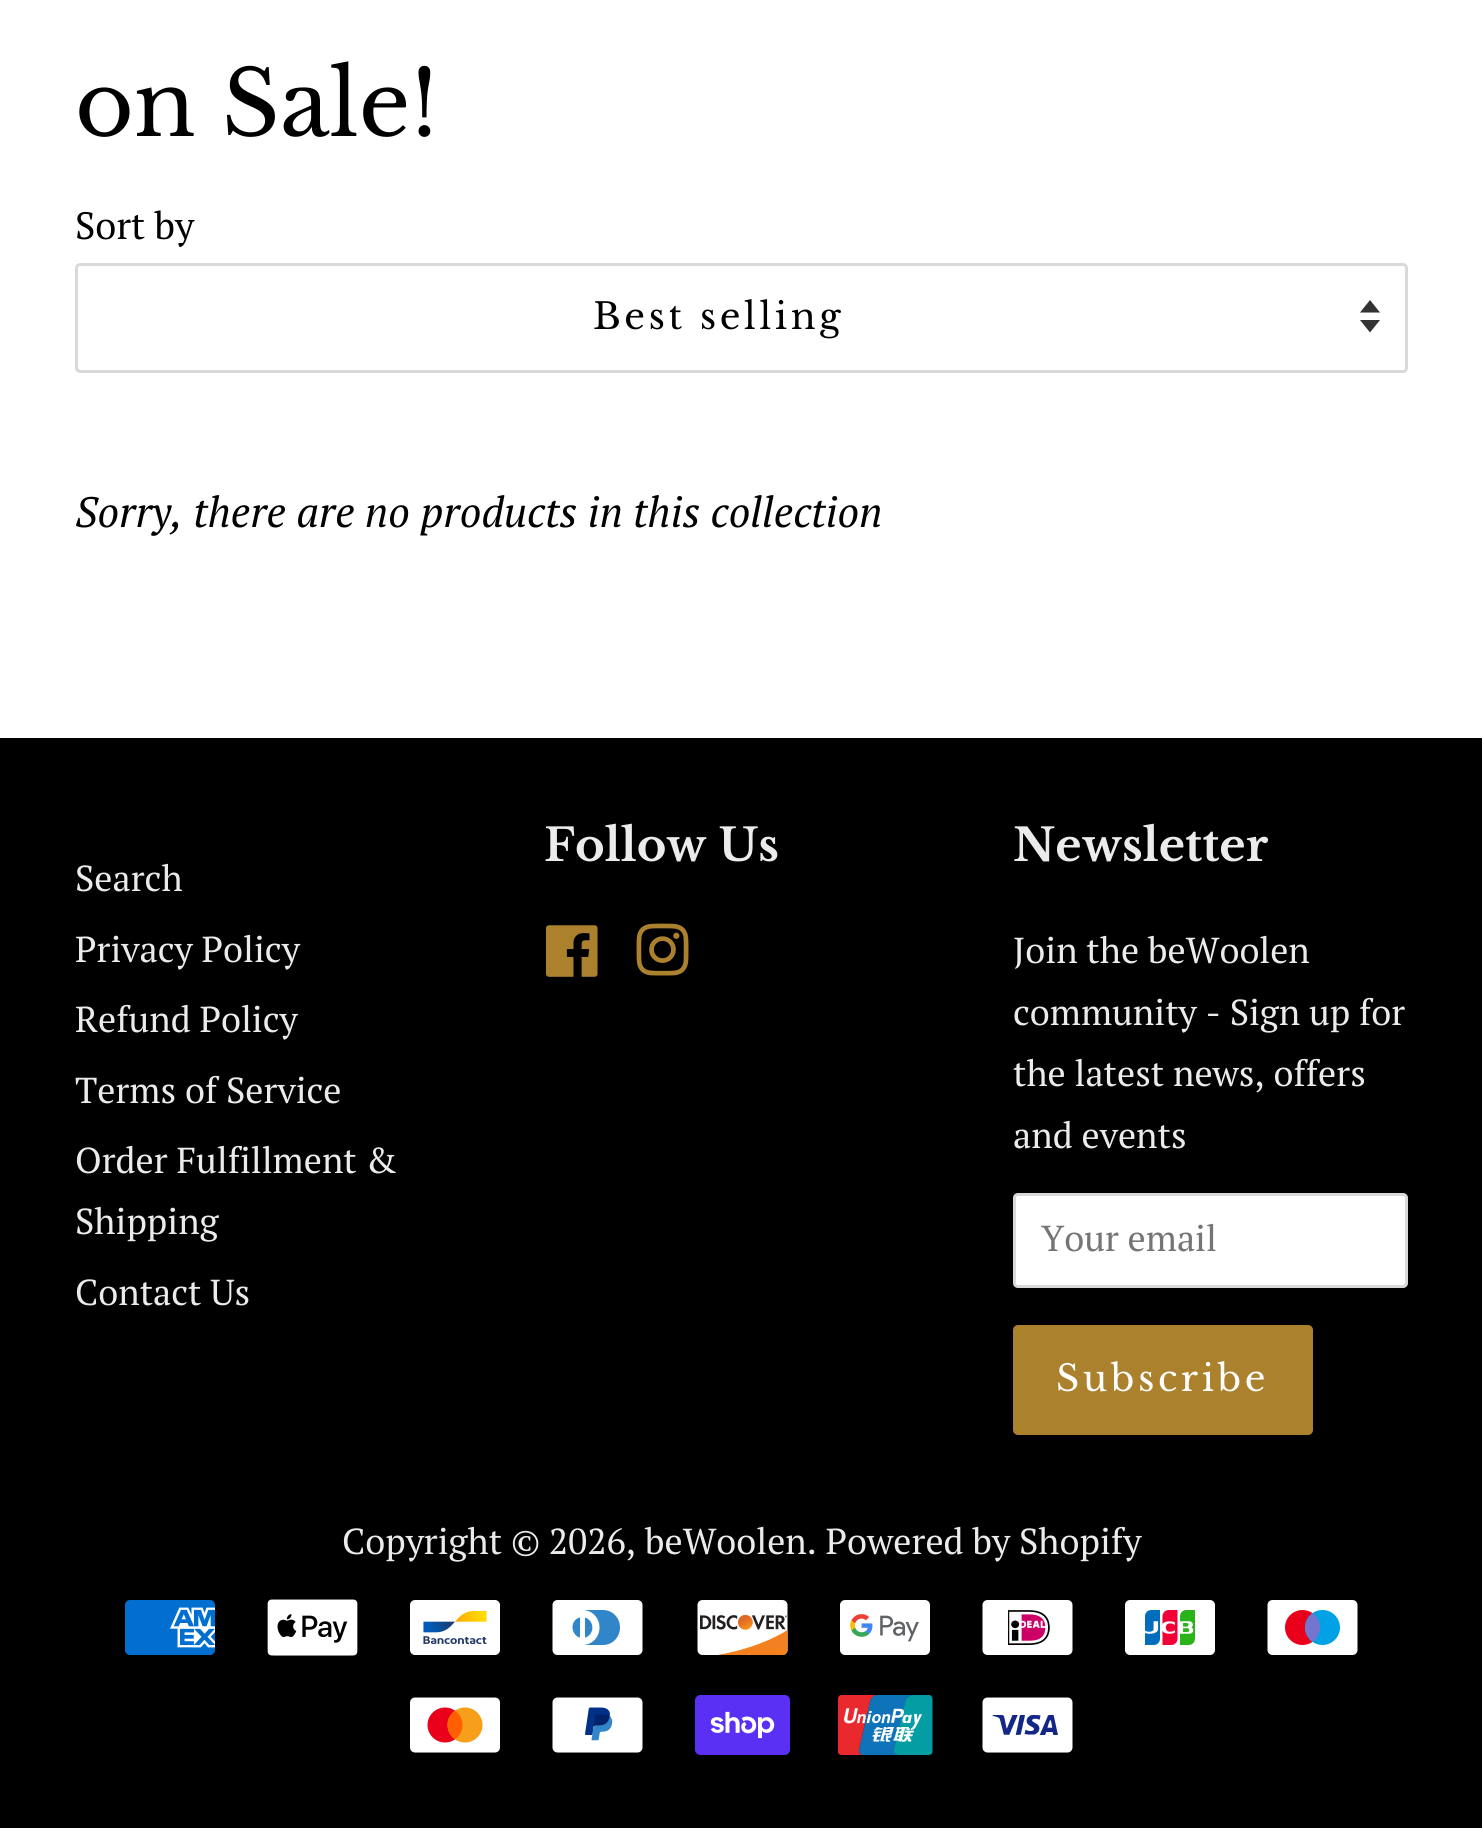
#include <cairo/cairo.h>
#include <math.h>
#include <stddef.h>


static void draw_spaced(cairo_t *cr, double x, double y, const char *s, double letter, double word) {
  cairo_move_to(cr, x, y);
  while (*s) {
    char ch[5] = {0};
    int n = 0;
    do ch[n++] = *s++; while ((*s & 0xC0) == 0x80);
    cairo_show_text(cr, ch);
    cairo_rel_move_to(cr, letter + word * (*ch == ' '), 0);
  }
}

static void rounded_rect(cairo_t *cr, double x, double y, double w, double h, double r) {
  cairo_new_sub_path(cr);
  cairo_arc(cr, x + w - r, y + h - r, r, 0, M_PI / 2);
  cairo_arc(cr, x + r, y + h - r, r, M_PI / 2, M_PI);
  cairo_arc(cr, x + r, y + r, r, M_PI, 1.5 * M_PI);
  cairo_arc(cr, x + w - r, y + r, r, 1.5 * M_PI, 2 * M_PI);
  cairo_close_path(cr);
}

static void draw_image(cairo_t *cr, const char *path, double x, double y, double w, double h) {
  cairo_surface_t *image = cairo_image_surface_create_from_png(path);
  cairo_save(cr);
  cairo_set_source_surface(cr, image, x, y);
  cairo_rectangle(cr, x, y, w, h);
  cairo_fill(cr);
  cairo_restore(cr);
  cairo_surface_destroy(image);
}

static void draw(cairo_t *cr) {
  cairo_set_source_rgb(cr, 1, 1, 1);
  cairo_paint(cr);
  cairo_set_source_rgb(cr, 51 / 255.0, 51 / 255.0, 51 / 255.0);
  cairo_new_path(cr);
  cairo_move_to(cr, 1360, 320);
  cairo_line_to(cr, 1370, 332.5);
  cairo_line_to(cr, 1380, 320);
  cairo_close_path(cr);
  cairo_move_to(cr, 1370, 300);
  cairo_line_to(cr, 1360, 312.5);
  cairo_line_to(cr, 1380, 312.5);
  cairo_close_path(cr);
  cairo_fill(cr);
  rounded_rect(cr, 76.5, 264.5, 1330, 107, 3.5);
  cairo_set_source_rgb(cr, 217 / 255.0, 217 / 255.0, 217 / 255.0);
  cairo_set_line_width(cr, 3);
  cairo_stroke(cr);
  cairo_set_source_rgb(cr, 0, 0, 0);
  cairo_rectangle(cr, 0, 738, 1482, 1090);
  cairo_fill(cr);
  draw_image(cr, "images/1.png", 545, 925, 53, 52);
  draw_image(cr, "images/2.png", 636, 923, 53, 53);
  cairo_set_source_rgb(cr, 1, 1, 1);
  rounded_rect(cr, 1013, 1193, 395, 95, 5);
  cairo_fill(cr);
  rounded_rect(cr, 1014.5, 1194.5, 392, 92, 3.5);
  cairo_set_source_rgba(cr, 0, 0, 0, 0.15);
  cairo_stroke(cr);
  cairo_set_source_rgb(cr, 172 / 255.0, 129 / 255.0, 46 / 255.0);
  rounded_rect(cr, 1013, 1325, 300, 110, 5);
  cairo_fill(cr);
  draw_image(cr, "images/3.png", 125, 1600, 90, 55);
  draw_image(cr, "images/4.png", 267, 1599, 91, 57);
  draw_image(cr, "images/5.png", 410, 1600, 90, 55);
  draw_image(cr, "images/6.png", 552, 1600, 91, 55);
  draw_image(cr, "images/7.png", 697, 1600, 91, 55);
  draw_image(cr, "images/8.png", 840, 1600, 90, 55);
  draw_image(cr, "images/9.png", 982, 1600, 91, 55);
  draw_image(cr, "images/10.png", 1125, 1600, 90, 55);
  draw_image(cr, "images/11.png", 1267, 1600, 91, 55);
  draw_image(cr, "images/12.png", 410, 1697, 90, 56);
  draw_image(cr, "images/13.png", 552, 1697, 91, 56);
  draw_image(cr, "images/14.png", 695, 1695, 95, 60);
  draw_image(cr, "images/15.png", 838, 1695, 95, 60);
  draw_image(cr, "images/16.png", 982, 1697, 91, 56);
  cairo_select_font_face(cr, "Libre Baskerville", CAIRO_FONT_SLANT_NORMAL, CAIRO_FONT_WEIGHT_NORMAL);
  cairo_set_font_size(cr, 90);
  cairo_set_source_rgb(cr, 0, 0, 0);
  cairo_move_to(cr, 75, 136);
  cairo_show_text(cr, "on Sale!");
  cairo_select_font_face(cr, "PT Serif", CAIRO_FONT_SLANT_NORMAL, CAIRO_FONT_WEIGHT_NORMAL);
  cairo_set_font_size(cr, 38);
  cairo_move_to(cr, 75, 239);
  cairo_show_text(cr, "Sort by");
  cairo_select_font_face(cr, "Libre Baskerville", CAIRO_FONT_SLANT_NORMAL, CAIRO_FONT_WEIGHT_NORMAL);
  cairo_set_font_size(cr, 36.1);
  draw_spaced(cr, 593, 329, "Best selling", 3.6, 0);
  cairo_select_font_face(cr, "PT Serif", CAIRO_FONT_SLANT_ITALIC, CAIRO_FONT_WEIGHT_NORMAL);
  cairo_set_font_size(cr, 42.5);
  cairo_move_to(cr, 75, 527);
  cairo_show_text(cr, "Sorry, there are no products in this collection");
  cairo_select_font_face(cr, "PT Serif", CAIRO_FONT_SLANT_NORMAL, CAIRO_FONT_WEIGHT_NORMAL);
  cairo_set_font_size(cr, 36.1);
  cairo_set_source_rgb(cr, 235 / 255.0, 235 / 255.0, 235 / 255.0);
  cairo_move_to(cr, 75, 891);
  cairo_show_text(cr, "Search");
  cairo_move_to(cr, 75, 962);
  cairo_show_text(cr, "Privacy Policy");
  cairo_move_to(cr, 75, 1032);
  cairo_show_text(cr, "Refund Policy");
  cairo_move_to(cr, 75, 1103);
  cairo_show_text(cr, "Terms of Service");
  cairo_move_to(cr, 75, 1173);
  cairo_show_text(cr, "Order Fulfillment &");
  cairo_move_to(cr, 75, 1234);
  cairo_show_text(cr, "Shipping");
  cairo_move_to(cr, 75, 1305);
  cairo_show_text(cr, "Contact Us");
  cairo_select_font_face(cr, "Libre Baskerville", CAIRO_FONT_SLANT_NORMAL, CAIRO_FONT_WEIGHT_BOLD);
  cairo_set_font_size(cr, 45);
  cairo_move_to(cr, 544, 861);
  cairo_show_text(cr, "Follow Us");
  cairo_move_to(cr, 1013, 861);
  cairo_show_text(cr, "Newsletter");
  cairo_select_font_face(cr, "PT Serif", CAIRO_FONT_SLANT_NORMAL, CAIRO_FONT_WEIGHT_NORMAL);
  cairo_set_font_size(cr, 36.1);
  cairo_move_to(cr, 1013, 963);
  cairo_show_text(cr, "Join the beWoolen");
  cairo_move_to(cr, 1013, 1025);
  cairo_show_text(cr, "community - Sign up for");
  cairo_move_to(cr, 1013, 1086);
  cairo_show_text(cr, "the latest news, offers");
  cairo_move_to(cr, 1013, 1148);
  cairo_show_text(cr, "and events");
  cairo_set_source_rgb(cr, 117 / 255.0, 117 / 255.0, 117 / 255.0);
  cairo_move_to(cr, 1041, 1251);
  cairo_show_text(cr, "Your email");
  cairo_select_font_face(cr, "Libre Baskerville", CAIRO_FONT_SLANT_NORMAL, CAIRO_FONT_WEIGHT_NORMAL);
  cairo_set_source_rgb(cr, 1, 1, 1);
  draw_spaced(cr, 1056, 1391, "Subscribe", 3.6, 0);
  cairo_select_font_face(cr, "PT Serif", CAIRO_FONT_SLANT_NORMAL, CAIRO_FONT_WEIGHT_NORMAL);
  cairo_set_source_rgb(cr, 235 / 255.0, 235 / 255.0, 235 / 255.0);
  cairo_move_to(cr, 342, 1554);
  cairo_show_text(cr, "Copyright © 2026, beWoolen. Powered by Shopify");
}

int main(void) {
  cairo_surface_t *surface = cairo_image_surface_create(CAIRO_FORMAT_RGB24, 1482, 1828);
  cairo_t *cr = cairo_create(surface);
  cairo_font_options_t *options = cairo_font_options_create();
  cairo_font_options_set_hint_metrics(options, CAIRO_HINT_METRICS_OFF);
  cairo_font_options_set_hint_style(options, CAIRO_HINT_STYLE_NONE);
  cairo_set_font_options(cr, options);
  cairo_set_miter_limit(cr, 4);
  draw(cr);
  cairo_surface_write_to_png(surface, "out.png");
  cairo_font_options_destroy(options);
  cairo_destroy(cr);
  cairo_surface_destroy(surface);
  return 0;
}
